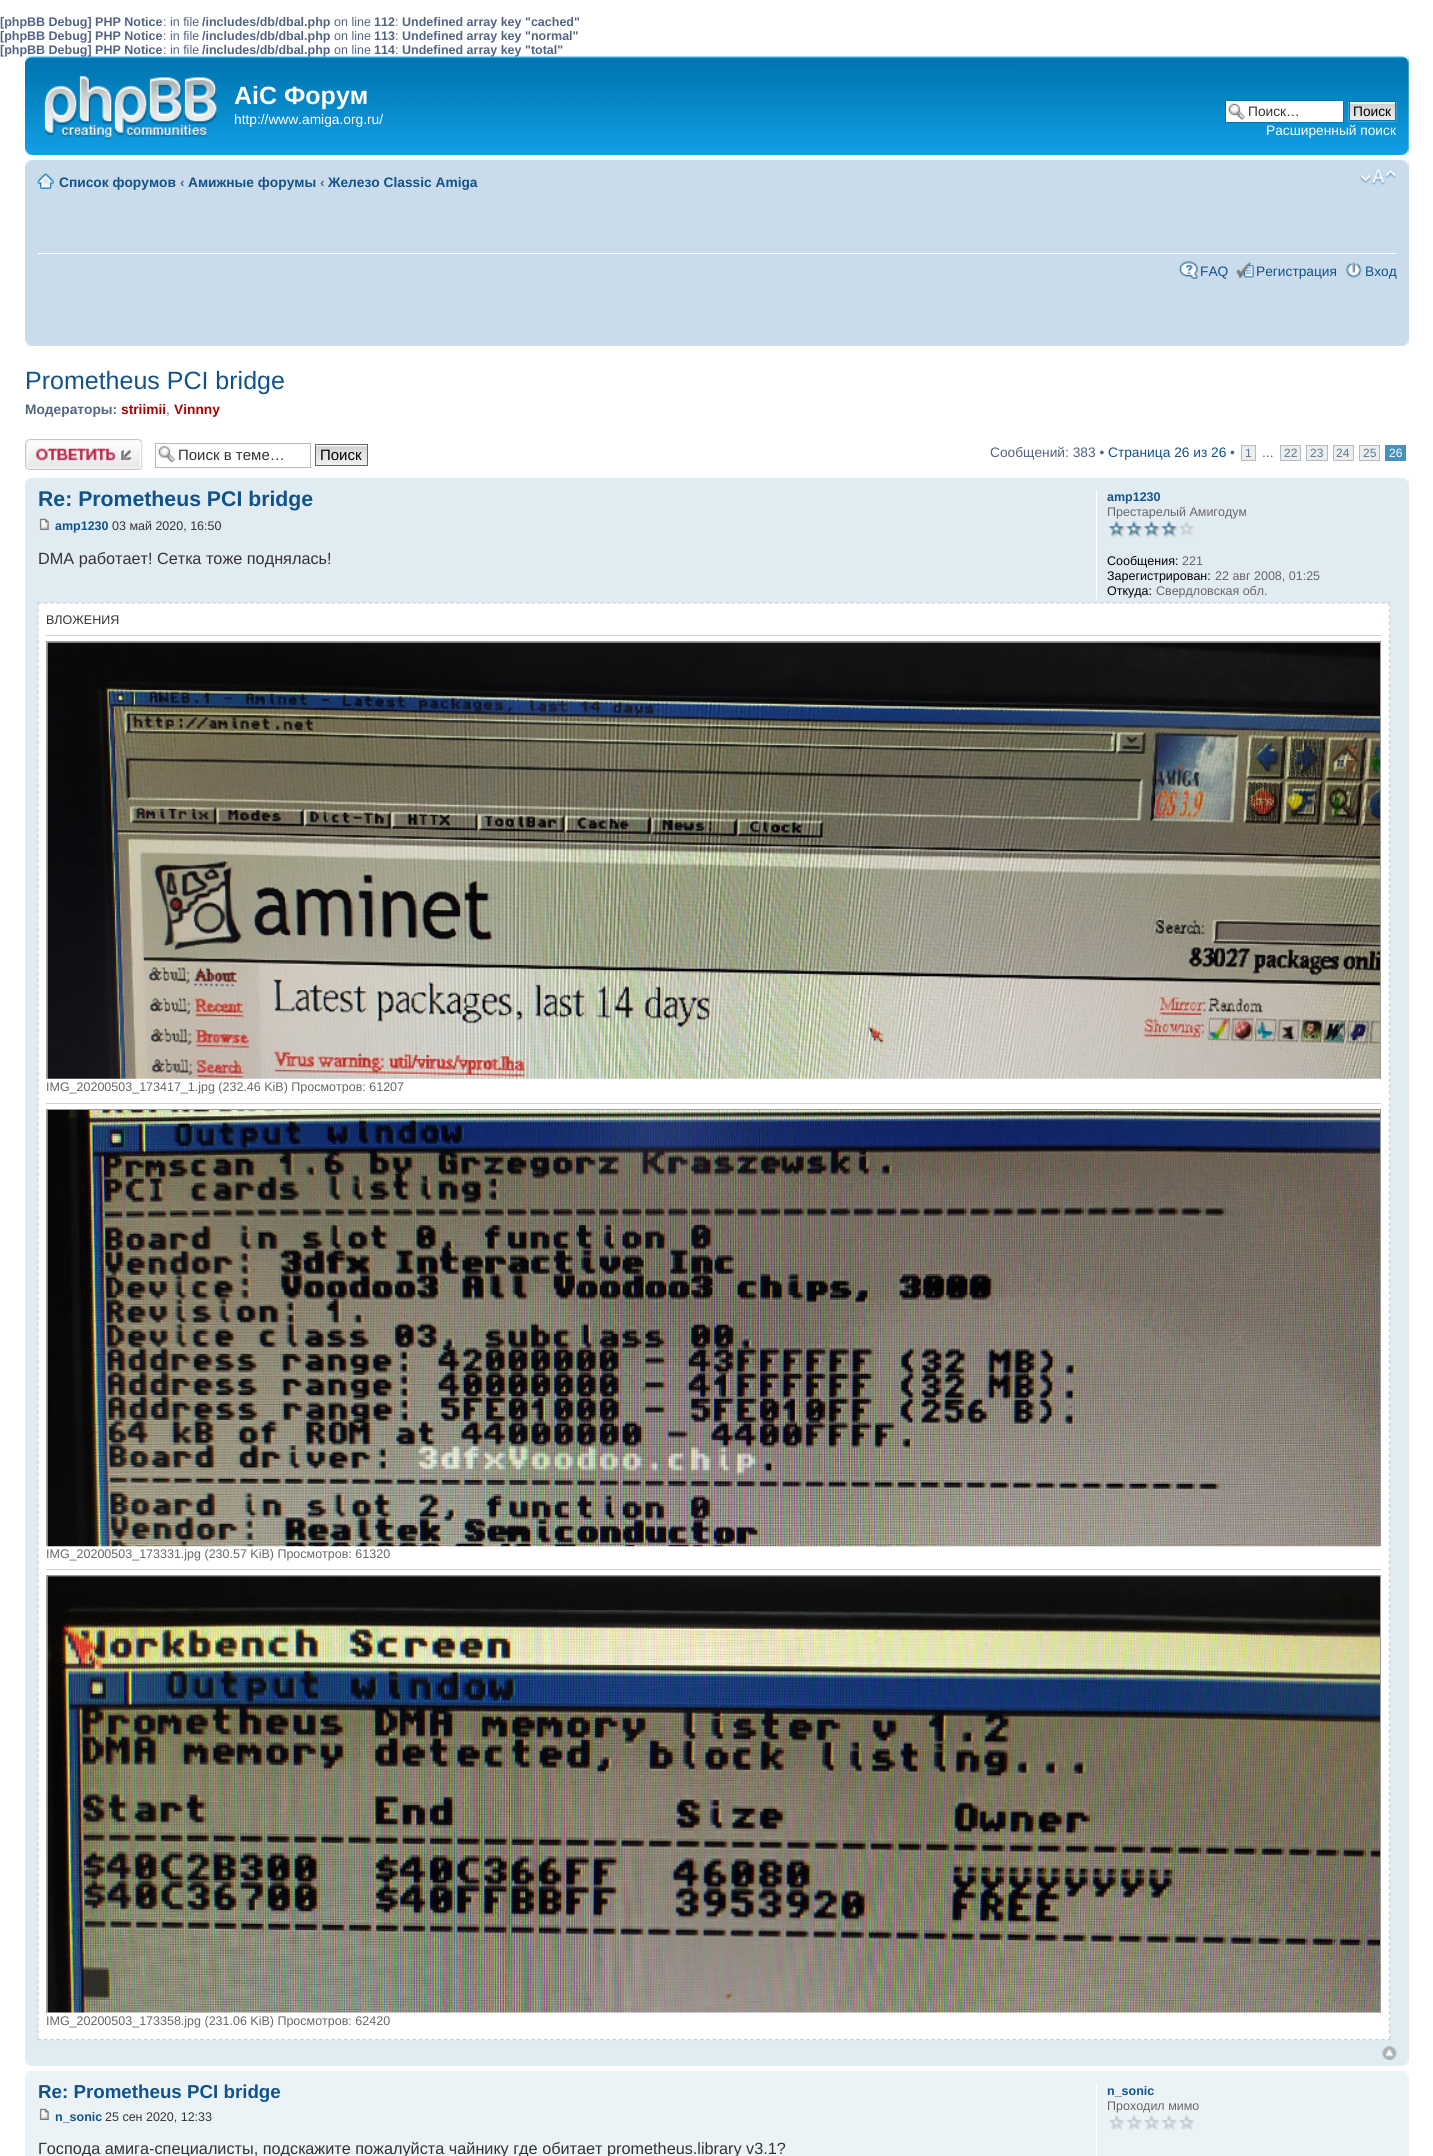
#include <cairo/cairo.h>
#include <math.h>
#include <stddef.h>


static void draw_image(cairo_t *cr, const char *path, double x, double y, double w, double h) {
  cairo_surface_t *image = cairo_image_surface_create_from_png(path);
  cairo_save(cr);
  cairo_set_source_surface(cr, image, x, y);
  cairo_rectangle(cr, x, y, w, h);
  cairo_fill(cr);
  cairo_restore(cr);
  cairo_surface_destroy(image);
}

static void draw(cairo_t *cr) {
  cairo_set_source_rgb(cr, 1, 1, 1);
  cairo_paint(cr);
  draw_image(cr, "images/1.png", 25, 56, 1384, 99);
  draw_image(cr, "images/2.png", 25, 56, 7, 7);
  draw_image(cr, "images/3.png", 1402, 56, 7, 7);
  draw_image(cr, "images/4.png", 44, 76, 173, 63);
  cairo_set_source_rgb(cr, 1, 1, 1);
  cairo_rectangle(cr, 1226, 101, 117, 21);
  cairo_fill(cr);
  draw_image(cr, "images/5.png", 1228, 103, 18, 17);
  cairo_rectangle(cr, 1225.5, 100.5, 118, 22);
  cairo_set_source_rgb(cr, 0, 117 / 255.0, 176 / 255.0);
  cairo_set_line_width(cr, 1);
  cairo_stroke(cr);
  cairo_set_source_rgb(cr, 250 / 255.0, 250 / 255.0, 250 / 255.0);
  cairo_rectangle(cr, 1350, 102, 45, 1);
  cairo_fill(cr);
  draw_image(cr, "images/6.png", 1348, 102, 49, 20);
  cairo_rectangle(cr, 1349.5, 101.5, 46, 19);
  cairo_set_source_rgb(cr, 0, 117 / 255.0, 176 / 255.0);
  cairo_stroke(cr);
  draw_image(cr, "images/7.png", 25, 148, 7, 7);
  draw_image(cr, "images/8.png", 1402, 148, 7, 7);
  cairo_set_source_rgb(cr, 202 / 255.0, 220 / 255.0, 235 / 255.0);
  cairo_rectangle(cr, 25, 160, 1384, 186);
  cairo_fill(cr);
  draw_image(cr, "images/9.png", 25, 160, 7, 6);
  draw_image(cr, "images/10.png", 1402, 160, 7, 6);
  cairo_set_source_rgb(cr, 1, 1, 1);
  cairo_rectangle(cr, 38, 253, 1358, 1);
  cairo_fill(cr);
  draw_image(cr, "images/11.png", 37, 173, 17, 16);
  draw_image(cr, "images/12.png", 1360, 170, 36, 15);
  draw_image(cr, "images/13.png", 1179, 261, 20, 18);
  draw_image(cr, "images/14.png", 1236, 262, 18, 17);
  draw_image(cr, "images/15.png", 1346, 262, 16, 16);
  draw_image(cr, "images/16.png", 25, 340, 6, 6);
  draw_image(cr, "images/17.png", 1402, 340, 7, 6);
  draw_image(cr, "images/18.png", 25, 438, 118, 32);
  draw_image(cr, "images/19.png", 158, 446, 18, 17);
  cairo_rectangle(cr, 155.5, 443.5, 155, 24);
  cairo_set_source_rgb(cr, 180 / 255.0, 186 / 255.0, 192 / 255.0);
  cairo_stroke(cr);
  draw_image(cr, "images/20.png", 315, 445, 53, 22);
  cairo_rectangle(cr, 315.5, 444.5, 52, 21);
  cairo_set_source_rgb(cr, 102 / 255.0, 102 / 255.0, 102 / 255.0);
  cairo_stroke(cr);
  cairo_set_source_rgb(cr, 236 / 255.0, 237 / 255.0, 238 / 255.0);
  cairo_rectangle(cr, 1241.5, 445.5, 14, 15);
  cairo_fill_preserve(cr);
  cairo_set_source_rgb(cr, 180 / 255.0, 186 / 255.0, 192 / 255.0);
  cairo_stroke(cr);
  cairo_set_source_rgb(cr, 236 / 255.0, 237 / 255.0, 238 / 255.0);
  cairo_rectangle(cr, 1280.5, 445.5, 20, 15);
  cairo_fill_preserve(cr);
  cairo_set_source_rgb(cr, 180 / 255.0, 186 / 255.0, 192 / 255.0);
  cairo_stroke(cr);
  cairo_set_source_rgb(cr, 236 / 255.0, 237 / 255.0, 238 / 255.0);
  cairo_rectangle(cr, 1306.5, 445.5, 21, 15);
  cairo_fill_preserve(cr);
  cairo_set_source_rgb(cr, 180 / 255.0, 186 / 255.0, 192 / 255.0);
  cairo_stroke(cr);
  cairo_set_source_rgb(cr, 236 / 255.0, 237 / 255.0, 238 / 255.0);
  cairo_rectangle(cr, 1333.5, 445.5, 20, 15);
  cairo_fill_preserve(cr);
  cairo_set_source_rgb(cr, 180 / 255.0, 186 / 255.0, 192 / 255.0);
  cairo_stroke(cr);
  cairo_set_source_rgb(cr, 236 / 255.0, 237 / 255.0, 238 / 255.0);
  cairo_rectangle(cr, 1359.5, 445.5, 20, 15);
  cairo_fill_preserve(cr);
  cairo_set_source_rgb(cr, 180 / 255.0, 186 / 255.0, 192 / 255.0);
  cairo_stroke(cr);
  cairo_set_source_rgb(cr, 70 / 255.0, 146 / 255.0, 191 / 255.0);
  cairo_rectangle(cr, 1385, 445, 21, 16);
  cairo_fill(cr);
  cairo_set_source_rgb(cr, 225 / 255.0, 235 / 255.0, 242 / 255.0);
  cairo_rectangle(cr, 25, 478, 1384, 1588);
  cairo_fill(cr);
  draw_image(cr, "images/21.png", 25, 478, 6, 6);
  draw_image(cr, "images/22.png", 1403, 478, 6, 5);
  draw_image(cr, "images/23.png", 39, 518, 10, 12);
  cairo_set_source_rgb(cr, 1, 1, 1);
  cairo_rectangle(cr, 38, 603, 1352, 1437);
  cairo_fill(cr);
  cairo_new_path(cr);
  cairo_move_to(cr, 37.5, 603);
  cairo_line_to(cr, 1390, 603);
  cairo_set_source_rgb(cr, 201 / 255.0, 210 / 255.0, 216 / 255.0);
  cairo_set_line_width(cr, 1.2);
  cairo_set_dash(cr, (double[]){3.75, 2.5}, 2, 0);
  cairo_stroke(cr);
  cairo_new_path(cr);
  cairo_move_to(cr, 1389.5, 602.5);
  cairo_line_to(cr, 1389.5, 2040);
  cairo_set_dash(cr, (double[]){3.75, 2.51}, 2, 0);
  cairo_stroke(cr);
  cairo_new_path(cr);
  cairo_move_to(cr, 37.5, 2039.5);
  cairo_line_to(cr, 1390, 2039.5);
  cairo_set_dash(cr, (double[]){3.75, 2.5}, 2, 0);
  cairo_stroke(cr);
  cairo_new_path(cr);
  cairo_move_to(cr, 38, 602.5);
  cairo_line_to(cr, 38, 2040);
  cairo_set_dash(cr, (double[]){3.75, 2.51}, 2, 0);
  cairo_stroke(cr);
  cairo_rectangle(cr, 46, 635, 1335, 1);
  cairo_fill(cr);
  cairo_rectangle(cr, 46, 1103, 1335, 1);
  cairo_fill(cr);
  cairo_save(cr);
  cairo_rectangle(cr, 46, 641, 1335, 438);
  cairo_clip(cr);
  cairo_rectangle(cr, 46.5, 641.5, 1334, 752);
  cairo_set_source_rgb(cr, 153 / 255.0, 153 / 255.0, 153 / 255.0);
  cairo_set_line_width(cr, 1);
  cairo_set_dash(cr, NULL, 0, 0);
  cairo_stroke(cr);
  cairo_restore(cr);
  draw_image(cr, "images/24.png", 47, 642, 1333, 437);
  cairo_rectangle(cr, 46, 1569, 1335, 1);
  cairo_fill(cr);
  cairo_save(cr);
  cairo_rectangle(cr, 46, 1109, 1335, 437);
  cairo_clip(cr);
  cairo_rectangle(cr, 46.5, 1109.5, 1334, 751);
  cairo_set_source_rgb(cr, 153 / 255.0, 153 / 255.0, 153 / 255.0);
  cairo_set_line_width(cr, 1);
  cairo_set_dash(cr, NULL, 0, 0);
  cairo_stroke(cr);
  cairo_restore(cr);
  draw_image(cr, "images/25.png", 47, 1110, 1333, 437);
  cairo_set_source_rgb(cr, 1, 1, 1);
  cairo_rectangle(cr, 1096, 490, 1, 109);
  cairo_fill(cr);
  draw_image(cr, "images/27.png", 1108, 520, 87, 18);
  draw_image(cr, "images/28.png", 1382, 2046, 15, 14);
  draw_image(cr, "images/29.png", 25, 2060, 6, 6);
  draw_image(cr, "images/30.png", 1403, 2060, 6, 6);
  cairo_set_source_rgb(cr, 236 / 255.0, 243 / 255.0, 247 / 255.0);
  cairo_rectangle(cr, 25, 2071, 1384, 85);
  cairo_fill(cr);
  draw_image(cr, "images/31.png", 25, 2071, 6, 6);
  draw_image(cr, "images/32.png", 1403, 2071, 6, 6);
  draw_image(cr, "images/33.png", 39, 2108, 10, 12);
  cairo_set_source_rgb(cr, 1, 1, 1);
  cairo_rectangle(cr, 1096, 2084, 1, 72);
  cairo_fill(cr);
  draw_image(cr, "images/34.png", 1109, 2115, 86, 15);
  cairo_select_font_face(cr, "Liberation Sans", CAIRO_FONT_SLANT_NORMAL, CAIRO_FONT_WEIGHT_BOLD);
  cairo_set_font_size(cr, 12.5);
  cairo_set_source_rgb(cr, 83 / 255.0, 100 / 255.0, 130 / 255.0);
  cairo_move_to(cr, 0, 26);
  cairo_show_text(cr, "[phpBB Debug] PHP Notice");
  cairo_select_font_face(cr, "Liberation Sans", CAIRO_FONT_SLANT_NORMAL, CAIRO_FONT_WEIGHT_NORMAL);
  cairo_move_to(cr, 163, 26);
  cairo_show_text(cr, ": in file");
  cairo_select_font_face(cr, "Liberation Sans", CAIRO_FONT_SLANT_NORMAL, CAIRO_FONT_WEIGHT_BOLD);
  cairo_move_to(cr, 202, 26);
  cairo_show_text(cr, "/includes/db/dbal.php");
  cairo_select_font_face(cr, "Liberation Sans", CAIRO_FONT_SLANT_NORMAL, CAIRO_FONT_WEIGHT_NORMAL);
  cairo_move_to(cr, 334, 26);
  cairo_show_text(cr, "on line");
  cairo_select_font_face(cr, "Liberation Sans", CAIRO_FONT_SLANT_NORMAL, CAIRO_FONT_WEIGHT_BOLD);
  cairo_move_to(cr, 374, 26);
  cairo_show_text(cr, "112");
  cairo_select_font_face(cr, "Liberation Sans", CAIRO_FONT_SLANT_NORMAL, CAIRO_FONT_WEIGHT_NORMAL);
  cairo_move_to(cr, 395, 26);
  cairo_show_text(cr, ":");
  cairo_select_font_face(cr, "Liberation Sans", CAIRO_FONT_SLANT_NORMAL, CAIRO_FONT_WEIGHT_BOLD);
  cairo_move_to(cr, 402, 26);
  cairo_show_text(cr, "Undefined array key \"cached\"");
  cairo_move_to(cr, 0, 40);
  cairo_show_text(cr, "[phpBB Debug] PHP Notice");
  cairo_select_font_face(cr, "Liberation Sans", CAIRO_FONT_SLANT_NORMAL, CAIRO_FONT_WEIGHT_NORMAL);
  cairo_move_to(cr, 163, 40);
  cairo_show_text(cr, ": in file");
  cairo_select_font_face(cr, "Liberation Sans", CAIRO_FONT_SLANT_NORMAL, CAIRO_FONT_WEIGHT_BOLD);
  cairo_move_to(cr, 202, 40);
  cairo_show_text(cr, "/includes/db/dbal.php");
  cairo_select_font_face(cr, "Liberation Sans", CAIRO_FONT_SLANT_NORMAL, CAIRO_FONT_WEIGHT_NORMAL);
  cairo_move_to(cr, 334, 40);
  cairo_show_text(cr, "on line");
  cairo_select_font_face(cr, "Liberation Sans", CAIRO_FONT_SLANT_NORMAL, CAIRO_FONT_WEIGHT_BOLD);
  cairo_move_to(cr, 374, 40);
  cairo_show_text(cr, "113");
  cairo_select_font_face(cr, "Liberation Sans", CAIRO_FONT_SLANT_NORMAL, CAIRO_FONT_WEIGHT_NORMAL);
  cairo_move_to(cr, 395, 40);
  cairo_show_text(cr, ":");
  cairo_select_font_face(cr, "Liberation Sans", CAIRO_FONT_SLANT_NORMAL, CAIRO_FONT_WEIGHT_BOLD);
  cairo_move_to(cr, 402, 40);
  cairo_show_text(cr, "Undefined array key \"normal\"");
  cairo_move_to(cr, 0, 54);
  cairo_show_text(cr, "[phpBB Debug] PHP Notice");
  cairo_select_font_face(cr, "Liberation Sans", CAIRO_FONT_SLANT_NORMAL, CAIRO_FONT_WEIGHT_NORMAL);
  cairo_move_to(cr, 163, 54);
  cairo_show_text(cr, ": in file");
  cairo_select_font_face(cr, "Liberation Sans", CAIRO_FONT_SLANT_NORMAL, CAIRO_FONT_WEIGHT_BOLD);
  cairo_move_to(cr, 202, 54);
  cairo_show_text(cr, "/includes/db/dbal.php");
  cairo_select_font_face(cr, "Liberation Sans", CAIRO_FONT_SLANT_NORMAL, CAIRO_FONT_WEIGHT_NORMAL);
  cairo_move_to(cr, 334, 54);
  cairo_show_text(cr, "on line");
  cairo_select_font_face(cr, "Liberation Sans", CAIRO_FONT_SLANT_NORMAL, CAIRO_FONT_WEIGHT_BOLD);
  cairo_move_to(cr, 374, 54);
  cairo_show_text(cr, "114");
  cairo_select_font_face(cr, "Liberation Sans", CAIRO_FONT_SLANT_NORMAL, CAIRO_FONT_WEIGHT_NORMAL);
  cairo_move_to(cr, 395, 54);
  cairo_show_text(cr, ":");
  cairo_select_font_face(cr, "Liberation Sans", CAIRO_FONT_SLANT_NORMAL, CAIRO_FONT_WEIGHT_BOLD);
  cairo_move_to(cr, 402, 54);
  cairo_show_text(cr, "Undefined array key \"total\"");
  cairo_set_font_size(cr, 25);
  cairo_set_source_rgb(cr, 1, 1, 1);
  cairo_move_to(cr, 234, 104);
  cairo_show_text(cr, "AiC Форум");
  cairo_select_font_face(cr, "Liberation Sans", CAIRO_FONT_SLANT_NORMAL, CAIRO_FONT_WEIGHT_NORMAL);
  cairo_set_font_size(cr, 13.75);
  cairo_move_to(cr, 234, 124);
  cairo_show_text(cr, "http://www.amiga.org.ru/");
  cairo_set_source_rgb(cr, 51 / 255.0, 51 / 255.0, 51 / 255.0);
  cairo_move_to(cr, 1248, 116);
  cairo_show_text(cr, "Поиск…");
  cairo_set_source_rgb(cr, 0, 0, 0);
  cairo_move_to(cr, 1353, 116);
  cairo_show_text(cr, "Поиск");
  cairo_set_source_rgb(cr, 1, 1, 1);
  cairo_move_to(cr, 1266, 135);
  cairo_show_text(cr, "Расширенный поиск");
  cairo_select_font_face(cr, "Liberation Sans", CAIRO_FONT_SLANT_NORMAL, CAIRO_FONT_WEIGHT_BOLD);
  cairo_set_source_rgb(cr, 16 / 255.0, 82 / 255.0, 137 / 255.0);
  cairo_move_to(cr, 59, 187);
  cairo_show_text(cr, "Список форумов");
  cairo_set_source_rgb(cr, 83 / 255.0, 100 / 255.0, 130 / 255.0);
  cairo_move_to(cr, 180, 187);
  cairo_show_text(cr, "‹");
  cairo_set_source_rgb(cr, 16 / 255.0, 82 / 255.0, 137 / 255.0);
  cairo_move_to(cr, 188, 187);
  cairo_show_text(cr, "Амижные форумы");
  cairo_set_source_rgb(cr, 83 / 255.0, 100 / 255.0, 130 / 255.0);
  cairo_move_to(cr, 320, 187);
  cairo_show_text(cr, "‹");
  cairo_set_source_rgb(cr, 16 / 255.0, 82 / 255.0, 137 / 255.0);
  cairo_move_to(cr, 328, 187);
  cairo_show_text(cr, "Железо Classic Amiga");
  cairo_select_font_face(cr, "Liberation Sans", CAIRO_FONT_SLANT_NORMAL, CAIRO_FONT_WEIGHT_NORMAL);
  cairo_move_to(cr, 1200, 276);
  cairo_show_text(cr, "FAQ");
  cairo_move_to(cr, 1256, 276);
  cairo_show_text(cr, "Регистрация");
  cairo_move_to(cr, 1365, 276);
  cairo_show_text(cr, "Вход");
  cairo_set_font_size(cr, 25);
  cairo_move_to(cr, 25, 389);
  cairo_show_text(cr, "Prometheus PCI bridge");
  cairo_select_font_face(cr, "Liberation Sans", CAIRO_FONT_SLANT_NORMAL, CAIRO_FONT_WEIGHT_BOLD);
  cairo_set_font_size(cr, 13.75);
  cairo_set_source_rgb(cr, 83 / 255.0, 100 / 255.0, 130 / 255.0);
  cairo_move_to(cr, 25, 414);
  cairo_show_text(cr, "Модераторы:");
  cairo_set_source_rgb(cr, 170 / 255.0, 0, 0);
  cairo_move_to(cr, 121, 414);
  cairo_show_text(cr, "striimii");
  cairo_select_font_face(cr, "Liberation Sans", CAIRO_FONT_SLANT_NORMAL, CAIRO_FONT_WEIGHT_NORMAL);
  cairo_set_source_rgb(cr, 83 / 255.0, 100 / 255.0, 130 / 255.0);
  cairo_move_to(cr, 166, 414);
  cairo_show_text(cr, ",");
  cairo_select_font_face(cr, "Liberation Sans", CAIRO_FONT_SLANT_NORMAL, CAIRO_FONT_WEIGHT_BOLD);
  cairo_set_source_rgb(cr, 170 / 255.0, 0, 0);
  cairo_move_to(cr, 174, 414);
  cairo_show_text(cr, "Vinnny");
  cairo_select_font_face(cr, "Liberation Sans", CAIRO_FONT_SLANT_NORMAL, CAIRO_FONT_WEIGHT_NORMAL);
  cairo_set_font_size(cr, 15);
  cairo_set_source_rgb(cr, 51 / 255.0, 51 / 255.0, 51 / 255.0);
  cairo_move_to(cr, 178, 460);
  cairo_show_text(cr, "Поиск в теме…");
  cairo_set_source_rgb(cr, 0, 0, 0);
  cairo_move_to(cr, 320, 460);
  cairo_show_text(cr, "Поиск");
  cairo_set_font_size(cr, 13.75);
  cairo_set_source_rgb(cr, 83 / 255.0, 100 / 255.0, 130 / 255.0);
  cairo_move_to(cr, 990, 457);
  cairo_show_text(cr, "Сообщений: 383 •");
  cairo_set_source_rgb(cr, 16 / 255.0, 82 / 255.0, 137 / 255.0);
  cairo_move_to(cr, 1108, 457);
  cairo_show_text(cr, "Страница 26 из 26");
  cairo_set_source_rgb(cr, 83 / 255.0, 100 / 255.0, 130 / 255.0);
  cairo_move_to(cr, 1230, 457);
  cairo_show_text(cr, "•");
  cairo_set_font_size(cr, 12);
  cairo_set_source_rgb(cr, 92 / 255.0, 117 / 255.0, 140 / 255.0);
  cairo_move_to(cr, 1245, 457);
  cairo_show_text(cr, "1");
  cairo_move_to(cr, 1284, 457);
  cairo_show_text(cr, "22");
  cairo_move_to(cr, 1310, 457);
  cairo_show_text(cr, "23");
  cairo_move_to(cr, 1336, 457);
  cairo_show_text(cr, "24");
  cairo_move_to(cr, 1363, 457);
  cairo_show_text(cr, "25");
  cairo_set_source_rgb(cr, 1, 1, 1);
  cairo_move_to(cr, 1389, 457);
  cairo_show_text(cr, "26");
  cairo_set_font_size(cr, 13.75);
  cairo_set_source_rgb(cr, 83 / 255.0, 100 / 255.0, 130 / 255.0);
  cairo_move_to(cr, 1262, 457);
  cairo_show_text(cr, "...");
  cairo_select_font_face(cr, "Liberation Sans", CAIRO_FONT_SLANT_NORMAL, CAIRO_FONT_WEIGHT_BOLD);
  cairo_set_font_size(cr, 21.25);
  cairo_set_source_rgb(cr, 16 / 255.0, 82 / 255.0, 137 / 255.0);
  cairo_move_to(cr, 38, 506);
  cairo_show_text(cr, "Re: Prometheus PCI bridge");
  cairo_set_font_size(cr, 12.5);
  cairo_move_to(cr, 55, 530);
  cairo_show_text(cr, "amp1230");
  cairo_select_font_face(cr, "Liberation Sans", CAIRO_FONT_SLANT_NORMAL, CAIRO_FONT_WEIGHT_NORMAL);
  cairo_set_source_rgb(cr, 51 / 255.0, 51 / 255.0, 51 / 255.0);
  cairo_move_to(cr, 112, 530);
  cairo_show_text(cr, "03 май 2020, 16:50");
  cairo_set_font_size(cr, 16.25);
  cairo_move_to(cr, 38, 564);
  cairo_show_text(cr, "DMA работает! Сетка тоже поднялась!");
  cairo_set_font_size(cr, 12.5);
  cairo_move_to(cr, 46, 624);
  cairo_show_text(cr, "ВЛОЖЕНИЯ");
  cairo_set_source_rgb(cr, 102 / 255.0, 102 / 255.0, 102 / 255.0);
  cairo_move_to(cr, 46, 1091);
  cairo_show_text(cr, "IMG_20200503_173417_1.jpg (232.46 KiB) Просмотров: 61207");
  cairo_move_to(cr, 46, 1558);
  cairo_show_text(cr, "IMG_20200503_173331.jpg (230.57 KiB) Просмотров: 61320");
  cairo_move_to(cr, 46, 2025);
  cairo_show_text(cr, "IMG_20200503_173358.jpg (231.06 KiB) Просмотров: 62420");
  cairo_select_font_face(cr, "Liberation Sans", CAIRO_FONT_SLANT_NORMAL, CAIRO_FONT_WEIGHT_BOLD);
  cairo_set_source_rgb(cr, 16 / 255.0, 82 / 255.0, 137 / 255.0);
  cairo_move_to(cr, 1107, 501);
  cairo_show_text(cr, "amp1230");
  cairo_select_font_face(cr, "Liberation Sans", CAIRO_FONT_SLANT_NORMAL, CAIRO_FONT_WEIGHT_NORMAL);
  cairo_set_source_rgb(cr, 102 / 255.0, 102 / 255.0, 102 / 255.0);
  cairo_move_to(cr, 1107, 516);
  cairo_show_text(cr, "Престарелый Амигодум");
  cairo_set_source_rgb(cr, 0, 0, 0);
  cairo_move_to(cr, 1107, 565);
  cairo_show_text(cr, "Сообщения:");
  cairo_set_source_rgb(cr, 102 / 255.0, 102 / 255.0, 102 / 255.0);
  cairo_move_to(cr, 1182, 565);
  cairo_show_text(cr, "221");
  cairo_set_source_rgb(cr, 0, 0, 0);
  cairo_move_to(cr, 1107, 580);
  cairo_show_text(cr, "Зарегистрирован:");
  cairo_set_source_rgb(cr, 102 / 255.0, 102 / 255.0, 102 / 255.0);
  cairo_move_to(cr, 1215, 580);
  cairo_show_text(cr, "22 авг 2008, 01:25");
  cairo_set_source_rgb(cr, 0, 0, 0);
  cairo_move_to(cr, 1107, 595);
  cairo_show_text(cr, "Откуда:");
  cairo_set_source_rgb(cr, 102 / 255.0, 102 / 255.0, 102 / 255.0);
  cairo_move_to(cr, 1156, 595);
  cairo_show_text(cr, "Свердловская обл.");
  cairo_select_font_face(cr, "Liberation Sans", CAIRO_FONT_SLANT_NORMAL, CAIRO_FONT_WEIGHT_BOLD);
  cairo_set_font_size(cr, 18.75);
  cairo_set_source_rgb(cr, 16 / 255.0, 82 / 255.0, 137 / 255.0);
  cairo_move_to(cr, 38, 2098);
  cairo_show_text(cr, "Re: Prometheus PCI bridge");
  cairo_save(cr);
  cairo_rectangle(cr, 46, 1575, 1335, 438);
  cairo_clip(cr);
  cairo_rectangle(cr, 46.5, 1575.5, 1334, 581);
  cairo_set_source_rgb(cr, 153 / 255.0, 153 / 255.0, 153 / 255.0);
  cairo_set_line_width(cr, 1);
  cairo_set_dash(cr, NULL, 0, 0);
  cairo_stroke(cr);
  cairo_restore(cr);
  draw_image(cr, "images/26.png", 47, 1576, 1333, 437);
  cairo_set_font_size(cr, 12.5);
  cairo_move_to(cr, 55, 2121);
  cairo_show_text(cr, "n_sonic");
  cairo_select_font_face(cr, "Liberation Sans", CAIRO_FONT_SLANT_NORMAL, CAIRO_FONT_WEIGHT_NORMAL);
  cairo_set_source_rgb(cr, 51 / 255.0, 51 / 255.0, 51 / 255.0);
  cairo_move_to(cr, 105, 2121);
  cairo_show_text(cr, "25 сен 2020, 12:33");
  cairo_set_font_size(cr, 16.25);
  cairo_move_to(cr, 38, 2154);
  cairo_show_text(cr, "Господа амига-специалисты, подскажите пожалуйста чайнику где обитает prometheus.library v3.1?");
  cairo_select_font_face(cr, "Liberation Sans", CAIRO_FONT_SLANT_NORMAL, CAIRO_FONT_WEIGHT_BOLD);
  cairo_set_font_size(cr, 12.5);
  cairo_set_source_rgb(cr, 16 / 255.0, 82 / 255.0, 137 / 255.0);
  cairo_move_to(cr, 1107, 2095);
  cairo_show_text(cr, "n_sonic");
  cairo_select_font_face(cr, "Liberation Sans", CAIRO_FONT_SLANT_NORMAL, CAIRO_FONT_WEIGHT_NORMAL);
  cairo_set_source_rgb(cr, 102 / 255.0, 102 / 255.0, 102 / 255.0);
  cairo_move_to(cr, 1107, 2110);
  cairo_show_text(cr, "Проходил мимо");
}

int main(void) {
  cairo_surface_t *surface = cairo_image_surface_create(CAIRO_FORMAT_RGB24, 1433, 2156);
  cairo_t *cr = cairo_create(surface);
  cairo_font_options_t *options = cairo_font_options_create();
  cairo_font_options_set_hint_metrics(options, CAIRO_HINT_METRICS_OFF);
  cairo_font_options_set_hint_style(options, CAIRO_HINT_STYLE_NONE);
  cairo_set_font_options(cr, options);
  cairo_set_miter_limit(cr, 4);
  draw(cr);
  cairo_surface_write_to_png(surface, "out.png");
  cairo_font_options_destroy(options);
  cairo_destroy(cr);
  cairo_surface_destroy(surface);
  return 0;
}
